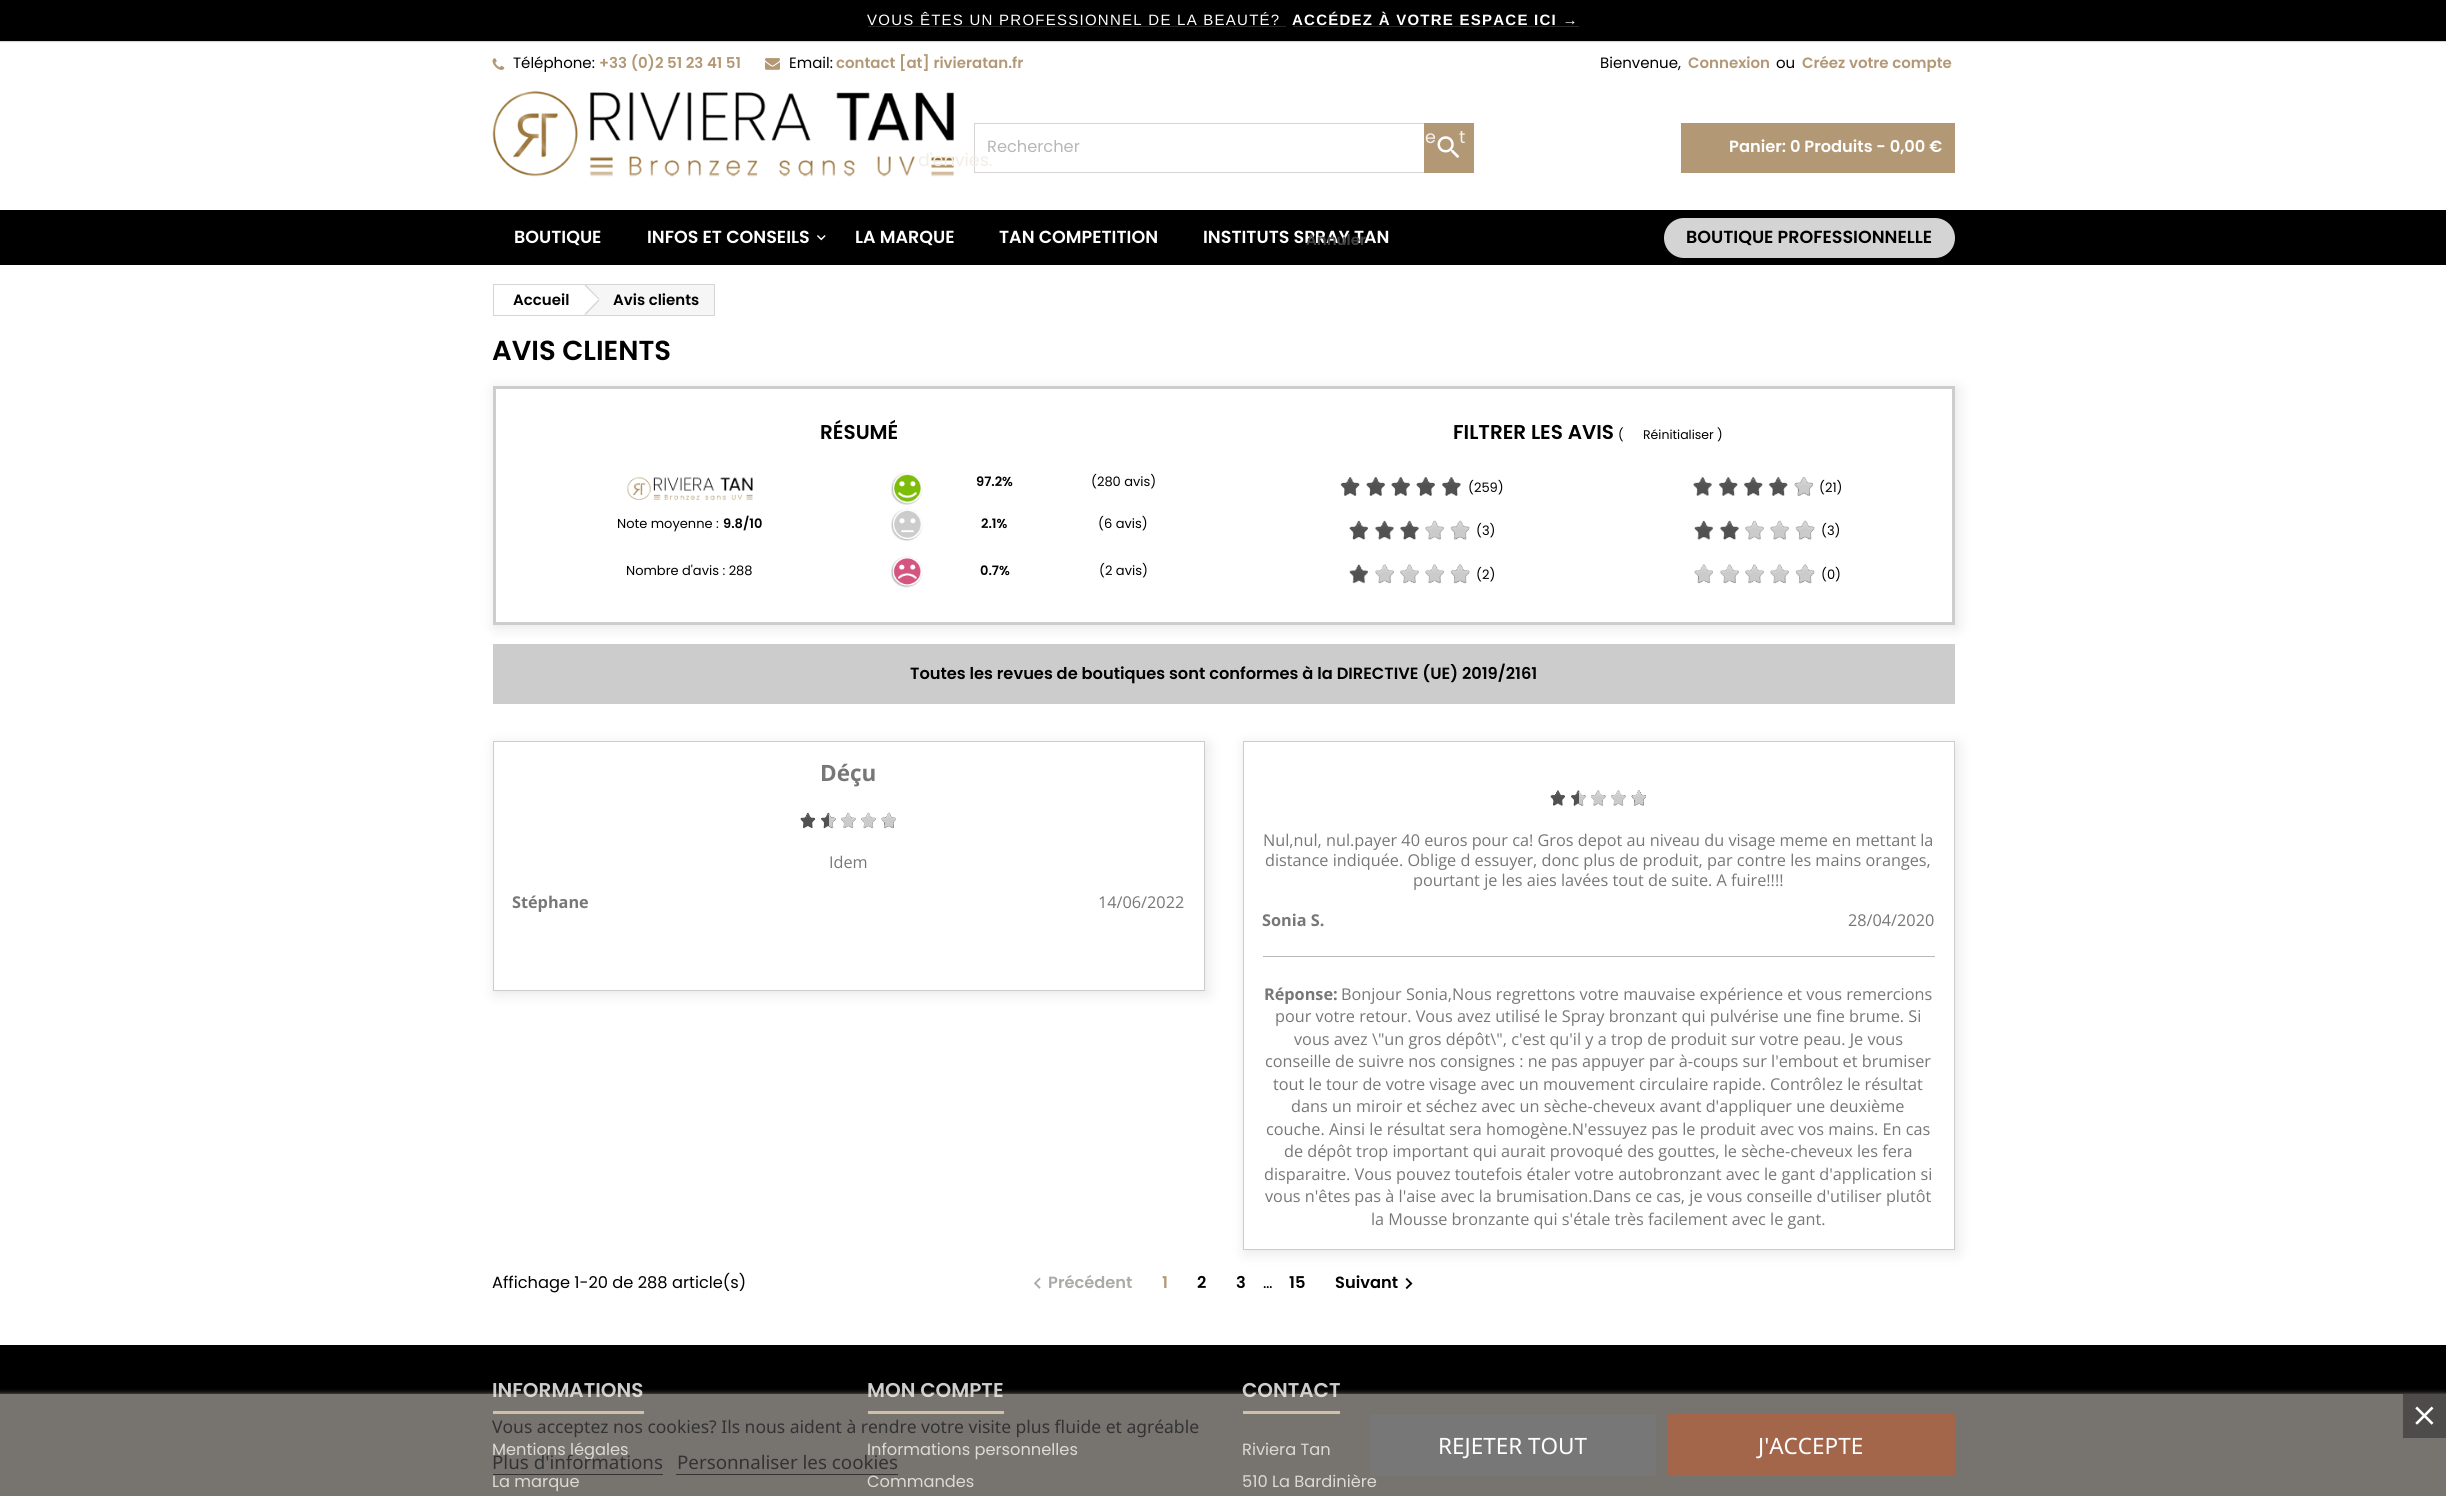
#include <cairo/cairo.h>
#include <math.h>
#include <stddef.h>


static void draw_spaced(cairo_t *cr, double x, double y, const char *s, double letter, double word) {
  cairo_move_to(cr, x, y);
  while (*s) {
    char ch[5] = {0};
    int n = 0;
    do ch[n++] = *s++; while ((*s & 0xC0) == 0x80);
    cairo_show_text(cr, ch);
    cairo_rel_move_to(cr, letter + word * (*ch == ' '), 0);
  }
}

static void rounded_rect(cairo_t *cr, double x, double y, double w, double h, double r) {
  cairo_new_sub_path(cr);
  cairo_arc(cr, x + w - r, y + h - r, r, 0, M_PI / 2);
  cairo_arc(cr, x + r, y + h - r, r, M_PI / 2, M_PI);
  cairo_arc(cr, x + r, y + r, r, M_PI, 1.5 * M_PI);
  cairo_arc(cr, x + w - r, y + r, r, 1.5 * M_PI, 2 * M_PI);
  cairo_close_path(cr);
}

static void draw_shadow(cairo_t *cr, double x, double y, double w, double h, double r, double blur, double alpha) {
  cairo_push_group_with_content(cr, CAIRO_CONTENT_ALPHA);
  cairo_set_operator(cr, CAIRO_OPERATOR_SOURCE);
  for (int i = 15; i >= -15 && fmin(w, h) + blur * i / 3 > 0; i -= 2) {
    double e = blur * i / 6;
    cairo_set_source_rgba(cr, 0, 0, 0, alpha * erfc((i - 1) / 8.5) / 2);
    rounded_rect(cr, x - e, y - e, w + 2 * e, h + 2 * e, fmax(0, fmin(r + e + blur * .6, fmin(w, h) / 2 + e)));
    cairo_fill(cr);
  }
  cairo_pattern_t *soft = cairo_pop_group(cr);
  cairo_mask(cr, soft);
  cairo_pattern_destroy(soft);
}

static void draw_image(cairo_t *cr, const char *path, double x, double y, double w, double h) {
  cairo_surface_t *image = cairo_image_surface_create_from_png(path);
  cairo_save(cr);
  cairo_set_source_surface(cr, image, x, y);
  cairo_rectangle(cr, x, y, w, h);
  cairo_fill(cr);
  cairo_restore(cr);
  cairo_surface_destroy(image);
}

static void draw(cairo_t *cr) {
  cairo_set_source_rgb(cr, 1, 1, 1);
  cairo_paint(cr);
  cairo_set_source_rgb(cr, 248 / 255.0, 248 / 255.0, 248 / 255.0);
  cairo_rectangle(cr, 0, 42, 2446, 1);
  cairo_fill(cr);
  cairo_set_source_rgb(cr, 214 / 255.0, 212 / 255.0, 212 / 255.0);
  cairo_rectangle(cr, 0, 41, 2446, 1);
  cairo_fill(cr);
  cairo_set_source_rgb(cr, 0, 0, 0);
  cairo_rectangle(cr, 0, 0, 2446, 41);
  cairo_fill(cr);
  cairo_set_source_rgb(cr, 40 / 255.0, 40 / 255.0, 40 / 255.0);
  cairo_rectangle(cr, 868, 26, 418, 1);
  cairo_fill(cr);
  cairo_rectangle(cr, 1293, 26, 286, 1);
  cairo_fill(cr);
  draw_image(cr, "images/1.png", 492, 58, 13, 12);
  draw_image(cr, "images/2.png", 765, 58, 15, 12);
  draw_image(cr, "images/3.png", 492, 91, 462, 86);
  cairo_rectangle(cr, 974.5, 123.5, 499, 49);
  cairo_set_source_rgb(cr, 214 / 255.0, 212 / 255.0, 212 / 255.0);
  cairo_set_line_width(cr, 1);
  cairo_stroke(cr);
  cairo_set_source_rgb(cr, 179 / 255.0, 152 / 255.0, 117 / 255.0);
  cairo_rectangle(cr, 1424, 123, 50, 50);
  cairo_fill(cr);
  draw_image(cr, "images/4.png", 1437, 136, 23, 22);
  cairo_rectangle(cr, 1681, 123, 274, 50);
  cairo_fill(cr);
  cairo_set_source_rgb(cr, 0, 0, 0);
  cairo_rectangle(cr, 0, 210, 2446, 55);
  cairo_fill(cr);
  draw_image(cr, "images/5.png", 817, 235, 9, 6);
  cairo_set_source_rgb(cr, 212 / 255.0, 212 / 255.0, 212 / 255.0);
  rounded_rect(cr, 1664, 218, 291, 40, 20);
  cairo_fill(cr);
  cairo_set_source_rgb(cr, 0, 0, 0);
  cairo_rectangle(cr, 0, 1345, 2446, 151);
  cairo_fill(cr);
  cairo_set_source_rgb(cr, 179 / 255.0, 152 / 255.0, 117 / 255.0);
  cairo_rectangle(cr, 493, 1411, 151, 3);
  cairo_fill(cr);
  cairo_rectangle(cr, 868, 1411, 136, 3);
  cairo_fill(cr);
  cairo_rectangle(cr, 1243, 1411, 97, 3);
  cairo_fill(cr);
  cairo_save(cr);
  cairo_rectangle(cr, 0, 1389, 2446, 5);
  cairo_clip(cr);
  cairo_set_source_rgb(cr, 192 / 255.0, 159 / 255.0, 141 / 255.0);
  draw_shadow(cr, 0, 1395, 2446, 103, 0, 3, 1);
  cairo_restore(cr);
  cairo_rectangle(cr, 493.5, 284.5, 221, 31);
  cairo_set_source_rgb(cr, 214 / 255.0, 212 / 255.0, 212 / 255.0);
  cairo_stroke(cr);
  cairo_set_source_rgb(cr, 246 / 255.0, 246 / 255.0, 246 / 255.0);
  cairo_rectangle(cr, 585, 285, 129, 30);
  cairo_fill(cr);
  cairo_set_source_rgb(cr, 1, 1, 1);
  cairo_new_path(cr);
  cairo_move_to(cr, 586, 285.5);
  cairo_line_to(cr, 598.5, 298);
  cairo_curve_to(cr, 599.5, 299, 599.5, 300.5, 598.5, 301.5);
  cairo_line_to(cr, 586, 314);
  cairo_curve_to(cr, 585, 315, 583.5, 315, 582.5, 314);
  cairo_line_to(cr, 570.5, 301.5);
  cairo_curve_to(cr, 569.5, 300.5, 569.5, 299, 570.5, 298);
  cairo_line_to(cr, 582.5, 285.5);
  cairo_curve_to(cr, 583.5, 284.5, 585, 284.5, 586, 285.5);
  cairo_close_path(cr);
  cairo_fill(cr);
  cairo_set_source_rgb(cr, 214 / 255.0, 212 / 255.0, 212 / 255.0);
  cairo_new_path(cr);
  cairo_move_to(cr, 585.5, 284.5);
  cairo_line_to(cr, 599.5, 299);
  cairo_line_to(cr, 598.5, 299.5);
  cairo_line_to(cr, 584.5, 285.5);
  cairo_close_path(cr);
  cairo_fill(cr);
  cairo_new_path(cr);
  cairo_move_to(cr, 598.5, 299.5);
  cairo_line_to(cr, 599.5, 300.5);
  cairo_line_to(cr, 585.5, 315);
  cairo_line_to(cr, 584.5, 314);
  cairo_close_path(cr);
  cairo_fill(cr);
  cairo_set_source_rgb(cr, 0, 0, 0);
  draw_shadow(cr, 495, 389, 1463, 239, 0, 7, 0.1);
  cairo_set_source_rgb(cr, 1, 1, 1);
  cairo_rectangle(cr, 494.5, 387.5, 1459, 236);
  cairo_fill_preserve(cr);
  cairo_set_source_rgb(cr, 205 / 255.0, 205 / 255.0, 205 / 255.0);
  cairo_set_line_width(cr, 3);
  cairo_stroke(cr);
  draw_image(cr, "images/7.png", 627, 477, 126, 23);
  draw_image(cr, "images/8.png", 891, 472, 32, 33);
  draw_image(cr, "images/9.png", 891, 508, 32, 34);
  draw_image(cr, "images/10.png", 891, 556, 32, 32);
  draw_image(cr, "images/11.png", 1340, 477, 121, 19);
  draw_image(cr, "images/12.png", 1693, 477, 120, 19);
  draw_image(cr, "images/13.png", 1349, 520, 121, 20);
  draw_image(cr, "images/14.png", 1694, 520, 121, 20);
  draw_image(cr, "images/15.png", 1349, 564, 121, 20);
  draw_image(cr, "images/16.png", 1694, 564, 121, 20);
  cairo_set_source_rgb(cr, 204 / 255.0, 204 / 255.0, 204 / 255.0);
  cairo_rectangle(cr, 493, 644, 1462, 60);
  cairo_fill(cr);
  cairo_set_source_rgb(cr, 0, 0, 0);
  draw_shadow(cr, 495, 744, 713, 250, 0, 7, 0.1);
  cairo_set_source_rgb(cr, 1, 1, 1);
  cairo_rectangle(cr, 493.5, 741.5, 711, 249);
  cairo_fill_preserve(cr);
  cairo_set_source_rgb(cr, 205 / 255.0, 205 / 255.0, 205 / 255.0);
  cairo_set_line_width(cr, 1);
  cairo_stroke(cr);
  draw_image(cr, "images/17.png", 800, 812, 97, 17);
  cairo_set_source_rgb(cr, 0, 0, 0);
  draw_shadow(cr, 1245, 744, 713, 509, 0, 7, 0.1);
  cairo_set_source_rgb(cr, 1, 1, 1);
  cairo_rectangle(cr, 1243.5, 741.5, 711, 508);
  cairo_fill_preserve(cr);
  cairo_set_source_rgb(cr, 205 / 255.0, 205 / 255.0, 205 / 255.0);
  cairo_stroke(cr);
  draw_image(cr, "images/18.png", 1550, 790, 96, 16);
  cairo_set_source_rgb(cr, 184 / 255.0, 184 / 255.0, 184 / 255.0);
  cairo_rectangle(cr, 1263, 956, 672, 1);
  cairo_fill(cr);
  draw_image(cr, "images/19.png", 1033, 1277, 8, 12);
  draw_image(cr, "images/20.png", 1405, 1278, 8, 12);
  cairo_select_font_face(cr, "Liberation Sans", CAIRO_FONT_SLANT_NORMAL, CAIRO_FONT_WEIGHT_NORMAL);
  cairo_set_font_size(cr, 15);
  cairo_set_source_rgb(cr, 1, 1, 1);
  draw_spaced(cr, 867, 25, "VOUS ÊTES UN PROFESSIONNEL DE LA BEAUTÉ?", 1.25, 0);
  cairo_select_font_face(cr, "Liberation Sans", CAIRO_FONT_SLANT_NORMAL, CAIRO_FONT_WEIGHT_BOLD);
  draw_spaced(cr, 1292, 25, "ACCÉDEZ À VOTRE ESPACE ICI →", 1.25, 0);
  cairo_select_font_face(cr, "Poppins", CAIRO_FONT_SLANT_NORMAL, CAIRO_FONT_WEIGHT_NORMAL);
  cairo_set_source_rgb(cr, 0, 0, 0);
  cairo_move_to(cr, 513, 68);
  cairo_show_text(cr, "Téléphone:");
  cairo_select_font_face(cr, "Poppins SemiBold", CAIRO_FONT_SLANT_NORMAL, CAIRO_FONT_WEIGHT_NORMAL);
  cairo_set_source_rgb(cr, 179 / 255.0, 152 / 255.0, 117 / 255.0);
  cairo_move_to(cr, 599, 68);
  cairo_show_text(cr, "+33 (0)2 51 23 41 51");
  cairo_select_font_face(cr, "Poppins", CAIRO_FONT_SLANT_NORMAL, CAIRO_FONT_WEIGHT_NORMAL);
  cairo_set_source_rgb(cr, 0, 0, 0);
  cairo_move_to(cr, 789, 68);
  cairo_show_text(cr, "Email:");
  cairo_select_font_face(cr, "Poppins SemiBold", CAIRO_FONT_SLANT_NORMAL, CAIRO_FONT_WEIGHT_NORMAL);
  cairo_set_source_rgb(cr, 179 / 255.0, 152 / 255.0, 117 / 255.0);
  cairo_move_to(cr, 836, 68);
  cairo_show_text(cr, "contact [at] rivieratan.fr");
  cairo_select_font_face(cr, "Poppins", CAIRO_FONT_SLANT_NORMAL, CAIRO_FONT_WEIGHT_NORMAL);
  cairo_set_source_rgb(cr, 0, 0, 0);
  cairo_move_to(cr, 1600, 68);
  cairo_show_text(cr, "Bienvenue,");
  cairo_select_font_face(cr, "Poppins SemiBold", CAIRO_FONT_SLANT_NORMAL, CAIRO_FONT_WEIGHT_NORMAL);
  cairo_set_source_rgb(cr, 179 / 255.0, 152 / 255.0, 117 / 255.0);
  cairo_move_to(cr, 1688, 68);
  cairo_show_text(cr, "Connexion");
  cairo_select_font_face(cr, "Poppins", CAIRO_FONT_SLANT_NORMAL, CAIRO_FONT_WEIGHT_NORMAL);
  cairo_set_source_rgb(cr, 0, 0, 0);
  cairo_move_to(cr, 1776, 68);
  cairo_show_text(cr, "ou");
  cairo_select_font_face(cr, "Poppins SemiBold", CAIRO_FONT_SLANT_NORMAL, CAIRO_FONT_WEIGHT_NORMAL);
  cairo_set_source_rgb(cr, 179 / 255.0, 152 / 255.0, 117 / 255.0);
  cairo_move_to(cr, 1802, 68);
  cairo_show_text(cr, "Créez votre compte");
  cairo_select_font_face(cr, "Poppins", CAIRO_FONT_SLANT_NORMAL, CAIRO_FONT_WEIGHT_NORMAL);
  cairo_set_font_size(cr, 16.25);
  cairo_set_source_rgb(cr, 183 / 255.0, 183 / 255.0, 183 / 255.0);
  cairo_move_to(cr, 987, 152);
  cairo_show_text(cr, "Rechercher");
  cairo_select_font_face(cr, "Poppins SemiBold", CAIRO_FONT_SLANT_NORMAL, CAIRO_FONT_WEIGHT_NORMAL);
  cairo_set_source_rgb(cr, 1, 1, 1);
  cairo_move_to(cr, 1729, 152);
  cairo_show_text(cr, "Panier: 0 Produits - 0,00 €");
  cairo_set_font_size(cr, 17.5);
  cairo_move_to(cr, 514, 243);
  cairo_show_text(cr, "BOUTIQUE");
  cairo_move_to(cr, 647, 243);
  cairo_show_text(cr, "INFOS ET CONSEILS");
  cairo_move_to(cr, 855, 243);
  cairo_show_text(cr, "LA MARQUE");
  cairo_move_to(cr, 999, 243);
  cairo_show_text(cr, "TAN COMPETITION");
  cairo_move_to(cr, 1203, 243);
  cairo_show_text(cr, "INSTITUTS SPRAY TAN");
  cairo_set_source_rgb(cr, 0, 0, 0);
  cairo_move_to(cr, 1686, 243);
  cairo_show_text(cr, "BOUTIQUE PROFESSIONNELLE");
  cairo_select_font_face(cr, "Poppins", CAIRO_FONT_SLANT_NORMAL, CAIRO_FONT_WEIGHT_NORMAL);
  cairo_set_source_rgb(cr, 244 / 255.0, 242 / 255.0, 239 / 255.0);
  cairo_move_to(cr, 1425, 143);
  cairo_show_text(cr, "e");
  cairo_move_to(cr, 1459, 143);
  cairo_show_text(cr, "t");
  cairo_set_source_rgb(cr, 242 / 255.0, 238 / 255.0, 231 / 255.0);
  cairo_move_to(cr, 918, 166);
  cairo_show_text(cr, "d'envies.");
  cairo_select_font_face(cr, "Poppins SemiBold", CAIRO_FONT_SLANT_NORMAL, CAIRO_FONT_WEIGHT_NORMAL);
  cairo_set_font_size(cr, 15);
  cairo_set_source_rgb(cr, 67 / 255.0, 67 / 255.0, 67 / 255.0);
  cairo_move_to(cr, 1306, 245);
  cairo_show_text(cr, "Annuler");
  cairo_set_font_size(cr, 20);
  cairo_set_source_rgb(cr, 204 / 255.0, 204 / 255.0, 204 / 255.0);
  cairo_move_to(cr, 492, 1397);
  cairo_show_text(cr, "INFORMATIONS");
  cairo_select_font_face(cr, "Poppins", CAIRO_FONT_SLANT_NORMAL, CAIRO_FONT_WEIGHT_NORMAL);
  cairo_set_font_size(cr, 16.25);
  cairo_move_to(cr, 492, 1455);
  cairo_show_text(cr, "Mentions légales");
  cairo_move_to(cr, 492, 1487);
  cairo_show_text(cr, "La marque");
  cairo_select_font_face(cr, "Poppins SemiBold", CAIRO_FONT_SLANT_NORMAL, CAIRO_FONT_WEIGHT_NORMAL);
  cairo_set_font_size(cr, 20);
  cairo_move_to(cr, 867, 1397);
  cairo_show_text(cr, "MON COMPTE");
  cairo_select_font_face(cr, "Poppins", CAIRO_FONT_SLANT_NORMAL, CAIRO_FONT_WEIGHT_NORMAL);
  cairo_set_font_size(cr, 16.25);
  cairo_move_to(cr, 867, 1455);
  cairo_show_text(cr, "Informations personnelles");
  cairo_move_to(cr, 867, 1487);
  cairo_show_text(cr, "Commandes");
  cairo_select_font_face(cr, "Poppins SemiBold", CAIRO_FONT_SLANT_NORMAL, CAIRO_FONT_WEIGHT_NORMAL);
  cairo_set_font_size(cr, 20);
  cairo_move_to(cr, 1242, 1397);
  cairo_show_text(cr, "CONTACT");
  cairo_select_font_face(cr, "Poppins", CAIRO_FONT_SLANT_NORMAL, CAIRO_FONT_WEIGHT_NORMAL);
  cairo_set_font_size(cr, 16.25);
  cairo_move_to(cr, 1242, 1455);
  cairo_show_text(cr, "Riviera Tan");
  cairo_move_to(cr, 1242, 1487);
  cairo_show_text(cr, "510 La Bardinière");
  cairo_set_source_rgba(cr, 239 / 255.0, 233 / 255.0, 224 / 255.0, 0.5);
  cairo_rectangle(cr, 0, 1394, 2446, 102);
  cairo_fill(cr);
  cairo_select_font_face(cr, "Noto Sans", CAIRO_FONT_SLANT_NORMAL, CAIRO_FONT_WEIGHT_NORMAL);
  cairo_set_font_size(cr, 17.5);
  cairo_set_source_rgb(cr, 51 / 255.0, 51 / 255.0, 51 / 255.0);
  cairo_move_to(cr, 492, 1433);
  cairo_show_text(cr, "Vous acceptez nos cookies? Ils nous aident à rendre votre visite plus fluide et agréable");
  cairo_set_font_size(cr, 18.75);
  cairo_move_to(cr, 492, 1469);
  cairo_show_text(cr, "Plus d'informations");
  cairo_rectangle(cr, 493, 1474, 170, 1);
  cairo_fill(cr);
  cairo_move_to(cr, 677, 1469);
  cairo_show_text(cr, "Personnaliser les cookies");
  cairo_rectangle(cr, 676, 1474, 222, 1);
  cairo_fill(cr);
  cairo_set_source_rgb(cr, 119 / 255.0, 119 / 255.0, 119 / 255.0);
  cairo_rectangle(cr, 1370, 1414, 286, 62);
  cairo_fill(cr);
  cairo_set_font_size(cr, 22.5);
  cairo_set_source_rgb(cr, 1, 1, 1);
  cairo_move_to(cr, 1438, 1454);
  cairo_show_text(cr, "REJETER TOUT");
  cairo_set_source_rgb(cr, 163 / 255.0, 102 / 255.0, 75 / 255.0);
  cairo_rectangle(cr, 1668, 1414, 287, 62);
  cairo_fill(cr);
  cairo_set_source_rgb(cr, 1, 1, 1);
  cairo_move_to(cr, 1758, 1454);
  cairo_show_text(cr, "J'ACCEPTE");
  cairo_set_source_rgb(cr, 77 / 255.0, 76 / 255.0, 75 / 255.0);
  cairo_rectangle(cr, 2403, 1394, 43, 44);
  cairo_fill(cr);
  draw_image(cr, "images/6.png", 2415, 1406, 19, 19);
  cairo_select_font_face(cr, "Poppins SemiBold", CAIRO_FONT_SLANT_NORMAL, CAIRO_FONT_WEIGHT_NORMAL);
  cairo_set_font_size(cr, 15);
  cairo_set_source_rgb(cr, 0, 0, 0);
  cairo_move_to(cr, 513, 305);
  cairo_show_text(cr, "Accueil");
  cairo_move_to(cr, 613, 305);
  cairo_show_text(cr, "Avis clients");
  cairo_set_font_size(cr, 27.5);
  cairo_move_to(cr, 492, 360);
  cairo_show_text(cr, "AVIS CLIENTS");
  cairo_set_font_size(cr, 20);
  cairo_move_to(cr, 820, 439);
  cairo_show_text(cr, "RÉSUMÉ");
  cairo_set_font_size(cr, 13);
  cairo_move_to(cr, 976, 486);
  cairo_show_text(cr, "97.2%");
  cairo_select_font_face(cr, "Poppins", CAIRO_FONT_SLANT_NORMAL, CAIRO_FONT_WEIGHT_NORMAL);
  cairo_move_to(cr, 1091, 486);
  cairo_show_text(cr, "(280 avis)");
  cairo_move_to(cr, 617, 528);
  cairo_show_text(cr, "Note moyenne :");
  cairo_select_font_face(cr, "Poppins SemiBold", CAIRO_FONT_SLANT_NORMAL, CAIRO_FONT_WEIGHT_NORMAL);
  cairo_move_to(cr, 723, 528);
  cairo_show_text(cr, "9.8/10");
  cairo_move_to(cr, 981, 528);
  cairo_show_text(cr, "2.1%");
  cairo_select_font_face(cr, "Poppins", CAIRO_FONT_SLANT_NORMAL, CAIRO_FONT_WEIGHT_NORMAL);
  cairo_move_to(cr, 1098, 528);
  cairo_show_text(cr, "(6 avis)");
  cairo_move_to(cr, 626, 575);
  cairo_show_text(cr, "Nombre d'avis : 288");
  cairo_select_font_face(cr, "Poppins SemiBold", CAIRO_FONT_SLANT_NORMAL, CAIRO_FONT_WEIGHT_NORMAL);
  cairo_move_to(cr, 980, 575);
  cairo_show_text(cr, "0.7%");
  cairo_select_font_face(cr, "Poppins", CAIRO_FONT_SLANT_NORMAL, CAIRO_FONT_WEIGHT_NORMAL);
  cairo_move_to(cr, 1099, 575);
  cairo_show_text(cr, "(2 avis)");
  cairo_select_font_face(cr, "Poppins SemiBold", CAIRO_FONT_SLANT_NORMAL, CAIRO_FONT_WEIGHT_NORMAL);
  cairo_set_font_size(cr, 20);
  cairo_move_to(cr, 1453, 439);
  cairo_show_text(cr, "FILTRER LES AVIS");
  cairo_select_font_face(cr, "Poppins", CAIRO_FONT_SLANT_NORMAL, CAIRO_FONT_WEIGHT_NORMAL);
  cairo_set_font_size(cr, 12.5);
  cairo_move_to(cr, 1618, 439);
  cairo_show_text(cr, "(");
  cairo_move_to(cr, 1643, 439);
  cairo_show_text(cr, "Réinitialiser )");
  cairo_set_font_size(cr, 13);
  cairo_move_to(cr, 1468, 492);
  cairo_show_text(cr, "(259)");
  cairo_move_to(cr, 1819, 492);
  cairo_show_text(cr, "(21)");
  cairo_move_to(cr, 1476, 535);
  cairo_show_text(cr, "(3)");
  cairo_move_to(cr, 1821, 535);
  cairo_show_text(cr, "(3)");
  cairo_move_to(cr, 1476, 579);
  cairo_show_text(cr, "(2)");
  cairo_move_to(cr, 1821, 579);
  cairo_show_text(cr, "(0)");
  cairo_select_font_face(cr, "Poppins SemiBold", CAIRO_FONT_SLANT_NORMAL, CAIRO_FONT_WEIGHT_NORMAL);
  cairo_set_font_size(cr, 16.25);
  cairo_move_to(cr, 910, 679);
  cairo_show_text(cr, "Toutes les revues de boutiques sont conformes à la DIRECTIVE (UE) 2019/2161");
  cairo_select_font_face(cr, "Open Sans", CAIRO_FONT_SLANT_NORMAL, CAIRO_FONT_WEIGHT_BOLD);
  cairo_set_font_size(cr, 22.5);
  cairo_set_source_rgb(cr, 119 / 255.0, 119 / 255.0, 119 / 255.0);
  cairo_move_to(cr, 820, 781);
  cairo_show_text(cr, "Déçu");
  cairo_select_font_face(cr, "Open Sans", CAIRO_FONT_SLANT_NORMAL, CAIRO_FONT_WEIGHT_NORMAL);
  cairo_set_font_size(cr, 16.25);
  cairo_move_to(cr, 829, 868);
  cairo_show_text(cr, "Idem");
  cairo_select_font_face(cr, "Open Sans", CAIRO_FONT_SLANT_NORMAL, CAIRO_FONT_WEIGHT_BOLD);
  cairo_move_to(cr, 512, 908);
  cairo_show_text(cr, "Stéphane");
  cairo_select_font_face(cr, "Open Sans", CAIRO_FONT_SLANT_NORMAL, CAIRO_FONT_WEIGHT_NORMAL);
  cairo_move_to(cr, 1098, 908);
  cairo_show_text(cr, "14/06/2022");
  cairo_move_to(cr, 1263, 846);
  cairo_show_text(cr, "Nul,nul, nul.payer 40 euros pour ca! Gros depot au niveau du visage meme en mettant la");
  cairo_move_to(cr, 1265, 866);
  cairo_show_text(cr, "distance indiquée. Oblige d essuyer, donc plus de produit, par contre les mains oranges,");
  cairo_move_to(cr, 1413, 886);
  cairo_show_text(cr, "pourtant je les aies lavées tout de suite. A fuire!!!!");
  cairo_select_font_face(cr, "Open Sans", CAIRO_FONT_SLANT_NORMAL, CAIRO_FONT_WEIGHT_BOLD);
  cairo_move_to(cr, 1262, 926);
  cairo_show_text(cr, "Sonia S.");
  cairo_select_font_face(cr, "Open Sans", CAIRO_FONT_SLANT_NORMAL, CAIRO_FONT_WEIGHT_NORMAL);
  cairo_move_to(cr, 1848, 926);
  cairo_show_text(cr, "28/04/2020");
  cairo_select_font_face(cr, "Open Sans", CAIRO_FONT_SLANT_NORMAL, CAIRO_FONT_WEIGHT_BOLD);
  cairo_move_to(cr, 1264, 1000);
  cairo_show_text(cr, "Réponse:");
  cairo_select_font_face(cr, "Open Sans", CAIRO_FONT_SLANT_NORMAL, CAIRO_FONT_WEIGHT_NORMAL);
  cairo_move_to(cr, 1341, 1000);
  cairo_show_text(cr, "Bonjour Sonia,Nous regrettons votre mauvaise expérience et vous remercions");
  cairo_move_to(cr, 1275, 1022);
  cairo_show_text(cr, "pour votre retour. Vous avez utilisé le Spray bronzant qui pulvérise une fine brume. Si");
  cairo_move_to(cr, 1294, 1045);
  cairo_show_text(cr, "vous avez \\\"un gros dépôt\\\", c'est qu'il y a trop de produit sur votre peau. Je vous");
  cairo_move_to(cr, 1265, 1067);
  cairo_show_text(cr, "conseille de suivre nos consignes : ne pas appuyer par à-coups sur l'embout et brumiser");
  cairo_move_to(cr, 1273, 1090);
  cairo_show_text(cr, "tout le tour de votre visage avec un mouvement circulaire rapide. Contrôlez le résultat");
  cairo_move_to(cr, 1291, 1112);
  cairo_show_text(cr, "dans un miroir et séchez avec un sèche-cheveux avant d'appliquer une deuxième");
  cairo_move_to(cr, 1266, 1135);
  cairo_show_text(cr, "couche. Ainsi le résultat sera homogène.N'essuyez pas le produit avec vos mains. En cas");
  cairo_move_to(cr, 1284, 1157);
  cairo_show_text(cr, "de dépôt trop important qui aurait provoqué des gouttes, le sèche-cheveux les fera");
  cairo_move_to(cr, 1264, 1180);
  cairo_show_text(cr, "disparaitre. Vous pouvez toutefois étaler votre autobronzant avec le gant d'application si");
  cairo_move_to(cr, 1265, 1202);
  cairo_show_text(cr, "vous n'êtes pas à l'aise avec la brumisation.Dans ce cas, je vous conseille d'utiliser plutôt");
  cairo_move_to(cr, 1371, 1225);
  cairo_show_text(cr, "la Mousse bronzante qui s'étale très facilement avec le gant.");
  cairo_select_font_face(cr, "Poppins", CAIRO_FONT_SLANT_NORMAL, CAIRO_FONT_WEIGHT_NORMAL);
  cairo_set_source_rgb(cr, 0, 0, 0);
  cairo_move_to(cr, 492, 1288);
  cairo_show_text(cr, "Affichage 1-20 de 288 article(s)");
  cairo_select_font_face(cr, "Poppins SemiBold", CAIRO_FONT_SLANT_NORMAL, CAIRO_FONT_WEIGHT_NORMAL);
  cairo_set_source_rgb(cr, 172 / 255.0, 170 / 255.0, 166 / 255.0);
  cairo_move_to(cr, 1048, 1288);
  cairo_show_text(cr, "Précédent");
  cairo_set_source_rgb(cr, 179 / 255.0, 152 / 255.0, 117 / 255.0);
  cairo_move_to(cr, 1162, 1288);
  cairo_show_text(cr, "1");
  cairo_set_source_rgb(cr, 0, 0, 0);
  cairo_move_to(cr, 1197, 1288);
  cairo_show_text(cr, "2");
  cairo_move_to(cr, 1236, 1288);
  cairo_show_text(cr, "3");
  cairo_select_font_face(cr, "Poppins", CAIRO_FONT_SLANT_NORMAL, CAIRO_FONT_WEIGHT_NORMAL);
  cairo_move_to(cr, 1263, 1288);
  cairo_show_text(cr, "…");
  cairo_select_font_face(cr, "Poppins SemiBold", CAIRO_FONT_SLANT_NORMAL, CAIRO_FONT_WEIGHT_NORMAL);
  cairo_move_to(cr, 1289, 1288);
  cairo_show_text(cr, "15");
  cairo_move_to(cr, 1335, 1288);
  cairo_show_text(cr, "Suivant");
}

int main(void) {
  cairo_surface_t *surface = cairo_image_surface_create(CAIRO_FORMAT_RGB24, 2446, 1496);
  cairo_t *cr = cairo_create(surface);
  cairo_font_options_t *options = cairo_font_options_create();
  cairo_font_options_set_hint_metrics(options, CAIRO_HINT_METRICS_OFF);
  cairo_font_options_set_hint_style(options, CAIRO_HINT_STYLE_NONE);
  cairo_set_font_options(cr, options);
  cairo_set_miter_limit(cr, 4);
  draw(cr);
  cairo_surface_write_to_png(surface, "out.png");
  cairo_font_options_destroy(options);
  cairo_destroy(cr);
  cairo_surface_destroy(surface);
  return 0;
}
